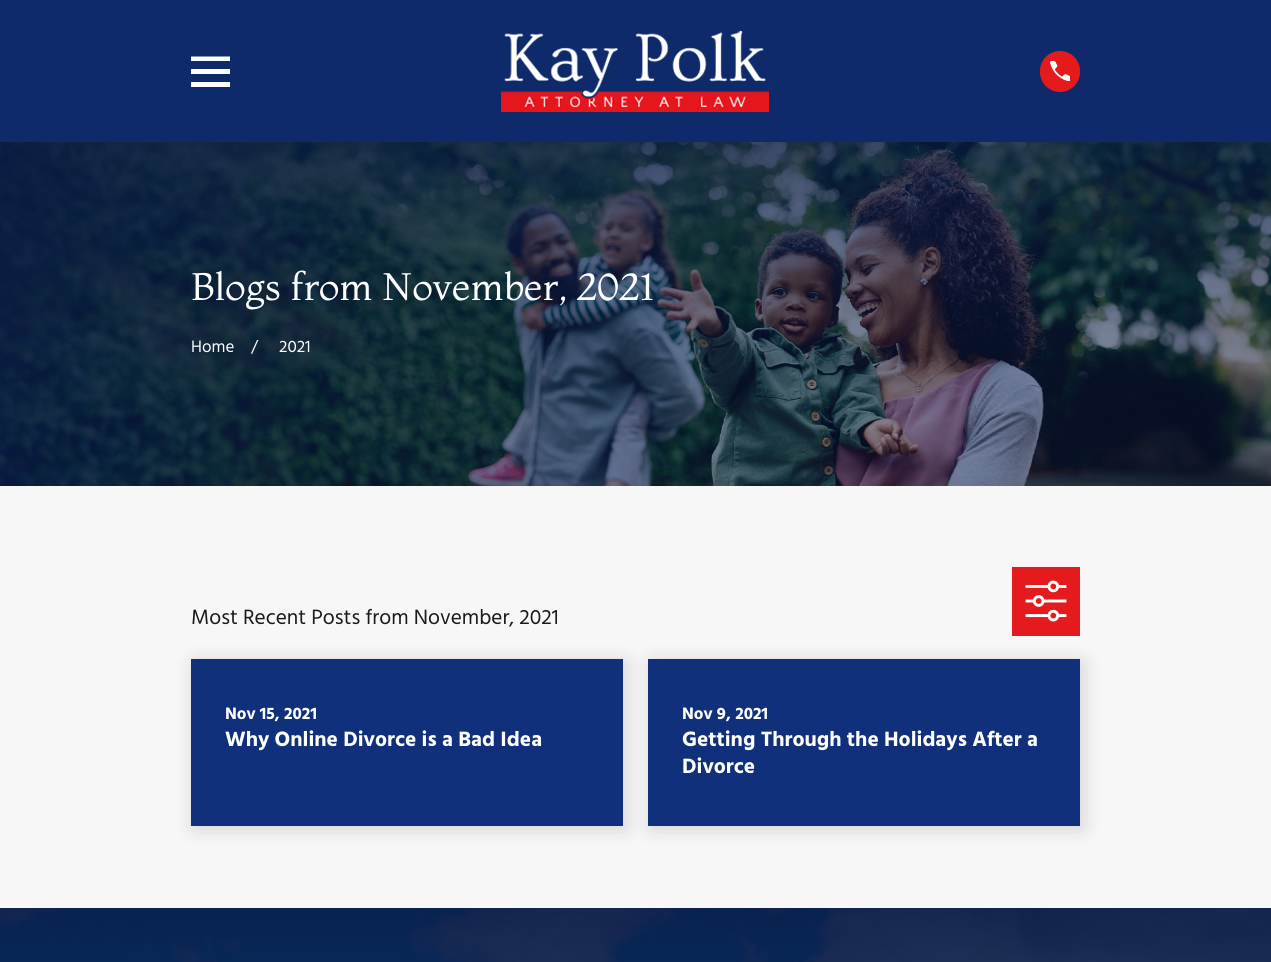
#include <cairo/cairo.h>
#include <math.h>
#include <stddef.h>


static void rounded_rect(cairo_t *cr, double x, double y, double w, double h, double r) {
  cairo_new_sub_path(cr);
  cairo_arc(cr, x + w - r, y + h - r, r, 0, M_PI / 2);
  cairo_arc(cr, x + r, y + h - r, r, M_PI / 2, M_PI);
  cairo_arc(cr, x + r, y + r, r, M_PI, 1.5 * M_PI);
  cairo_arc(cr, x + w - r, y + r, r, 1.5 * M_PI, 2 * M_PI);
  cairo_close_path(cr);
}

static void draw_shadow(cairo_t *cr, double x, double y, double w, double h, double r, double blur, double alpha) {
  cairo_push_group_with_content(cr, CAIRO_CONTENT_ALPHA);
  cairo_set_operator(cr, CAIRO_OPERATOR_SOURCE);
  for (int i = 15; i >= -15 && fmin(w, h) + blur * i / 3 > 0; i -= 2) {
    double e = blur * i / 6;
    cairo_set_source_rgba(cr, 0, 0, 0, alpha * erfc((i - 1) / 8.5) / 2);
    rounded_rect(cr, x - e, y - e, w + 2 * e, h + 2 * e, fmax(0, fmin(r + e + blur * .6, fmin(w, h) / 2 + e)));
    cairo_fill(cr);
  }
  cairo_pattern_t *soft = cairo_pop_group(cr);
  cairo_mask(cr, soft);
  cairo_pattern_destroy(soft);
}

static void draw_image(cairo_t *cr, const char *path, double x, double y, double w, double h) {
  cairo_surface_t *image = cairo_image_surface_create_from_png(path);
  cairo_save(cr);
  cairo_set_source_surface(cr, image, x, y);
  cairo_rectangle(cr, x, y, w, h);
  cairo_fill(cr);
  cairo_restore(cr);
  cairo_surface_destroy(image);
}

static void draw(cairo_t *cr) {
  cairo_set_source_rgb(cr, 247 / 255.0, 247 / 255.0, 247 / 255.0);
  cairo_paint(cr);
  cairo_set_source_rgb(cr, 15 / 255.0, 42 / 255.0, 107 / 255.0);
  cairo_rectangle(cr, 0, 0, 1271, 142);
  cairo_fill(cr);
  cairo_set_source_rgb(cr, 1, 1, 1);
  cairo_new_path(cr);
  cairo_move_to(cr, 191, 56.5);
  cairo_line_to(cr, 191, 61);
  cairo_line_to(cr, 230, 61);
  cairo_line_to(cr, 230, 56.5);
  cairo_close_path(cr);
  cairo_move_to(cr, 191, 69);
  cairo_line_to(cr, 191, 74);
  cairo_line_to(cr, 230, 74);
  cairo_line_to(cr, 230, 69);
  cairo_close_path(cr);
  cairo_move_to(cr, 191, 82);
  cairo_line_to(cr, 191, 87);
  cairo_line_to(cr, 230, 87);
  cairo_line_to(cr, 230, 82);
  cairo_close_path(cr);
  cairo_fill(cr);
  draw_image(cr, "images/1.png", 501, 31, 268, 81);
  cairo_set_source_rgb(cr, 228 / 255.0, 26 / 255.0, 29 / 255.0);
  rounded_rect(cr, 1040, 51, 40, 41, 20);
  cairo_fill(cr);
  draw_image(cr, "images/2.png", 1050, 61, 20, 20);
  draw_image(cr, "images/3.png", 0, 142, 1271, 344);
  cairo_rectangle(cr, 1012, 567, 68, 69);
  cairo_fill(cr);
  draw_image(cr, "images/4.png", 1025, 580, 42, 42);
  cairo_set_source_rgb(cr, 0, 0, 0);
  draw_shadow(cr, 194, 662, 432, 167, 0, 10, 0.15);
  cairo_set_source_rgb(cr, 17 / 255.0, 48 / 255.0, 124 / 255.0);
  cairo_rectangle(cr, 191, 659, 432, 167);
  cairo_fill(cr);
  cairo_set_source_rgb(cr, 0, 0, 0);
  draw_shadow(cr, 651, 662, 432, 167, 0, 10, 0.15);
  cairo_set_source_rgb(cr, 17 / 255.0, 48 / 255.0, 124 / 255.0);
  cairo_rectangle(cr, 648, 659, 432, 167);
  cairo_fill(cr);
  draw_image(cr, "images/5.png", 0, 908, 1271, 54);
  cairo_select_font_face(cr, "Montaga", CAIRO_FONT_SLANT_NORMAL, CAIRO_FONT_WEIGHT_NORMAL);
  cairo_set_font_size(cr, 38.25);
  cairo_set_source_rgb(cr, 1, 1, 1);
  cairo_move_to(cr, 191, 300);
  cairo_show_text(cr, "Blogs from November, 2021");
  cairo_select_font_face(cr, "Hind", CAIRO_FONT_SLANT_NORMAL, CAIRO_FONT_WEIGHT_NORMAL);
  cairo_set_font_size(cr, 17);
  cairo_move_to(cr, 191, 352);
  cairo_show_text(cr, "Home");
  cairo_move_to(cr, 251, 352);
  cairo_show_text(cr, "/");
  cairo_move_to(cr, 279, 352);
  cairo_show_text(cr, "2021");
  cairo_set_font_size(cr, 21.25);
  cairo_set_source_rgb(cr, 26 / 255.0, 26 / 255.0, 26 / 255.0);
  cairo_move_to(cr, 191, 624);
  cairo_show_text(cr, "Most Recent Posts from November, 2021");
  cairo_select_font_face(cr, "Hind", CAIRO_FONT_SLANT_NORMAL, CAIRO_FONT_WEIGHT_BOLD);
  cairo_set_font_size(cr, 17);
  cairo_set_source_rgb(cr, 1, 1, 1);
  cairo_move_to(cr, 225, 719);
  cairo_show_text(cr, "Nov 15, 2021");
  cairo_set_font_size(cr, 21.25);
  cairo_move_to(cr, 225, 746);
  cairo_show_text(cr, "Why Online Divorce is a Bad Idea");
  cairo_set_font_size(cr, 17);
  cairo_move_to(cr, 682, 719);
  cairo_show_text(cr, "Nov 9, 2021");
  cairo_set_font_size(cr, 21.25);
  cairo_move_to(cr, 682, 746);
  cairo_show_text(cr, "Getting Through the Holidays After a");
  cairo_move_to(cr, 682, 773);
  cairo_show_text(cr, "Divorce");
}

int main(void) {
  cairo_surface_t *surface = cairo_image_surface_create(CAIRO_FORMAT_RGB24, 1271, 962);
  cairo_t *cr = cairo_create(surface);
  cairo_font_options_t *options = cairo_font_options_create();
  cairo_font_options_set_hint_metrics(options, CAIRO_HINT_METRICS_OFF);
  cairo_font_options_set_hint_style(options, CAIRO_HINT_STYLE_NONE);
  cairo_set_font_options(cr, options);
  cairo_set_miter_limit(cr, 4);
  draw(cr);
  cairo_surface_write_to_png(surface, "out.png");
  cairo_font_options_destroy(options);
  cairo_destroy(cr);
  cairo_surface_destroy(surface);
  return 0;
}
